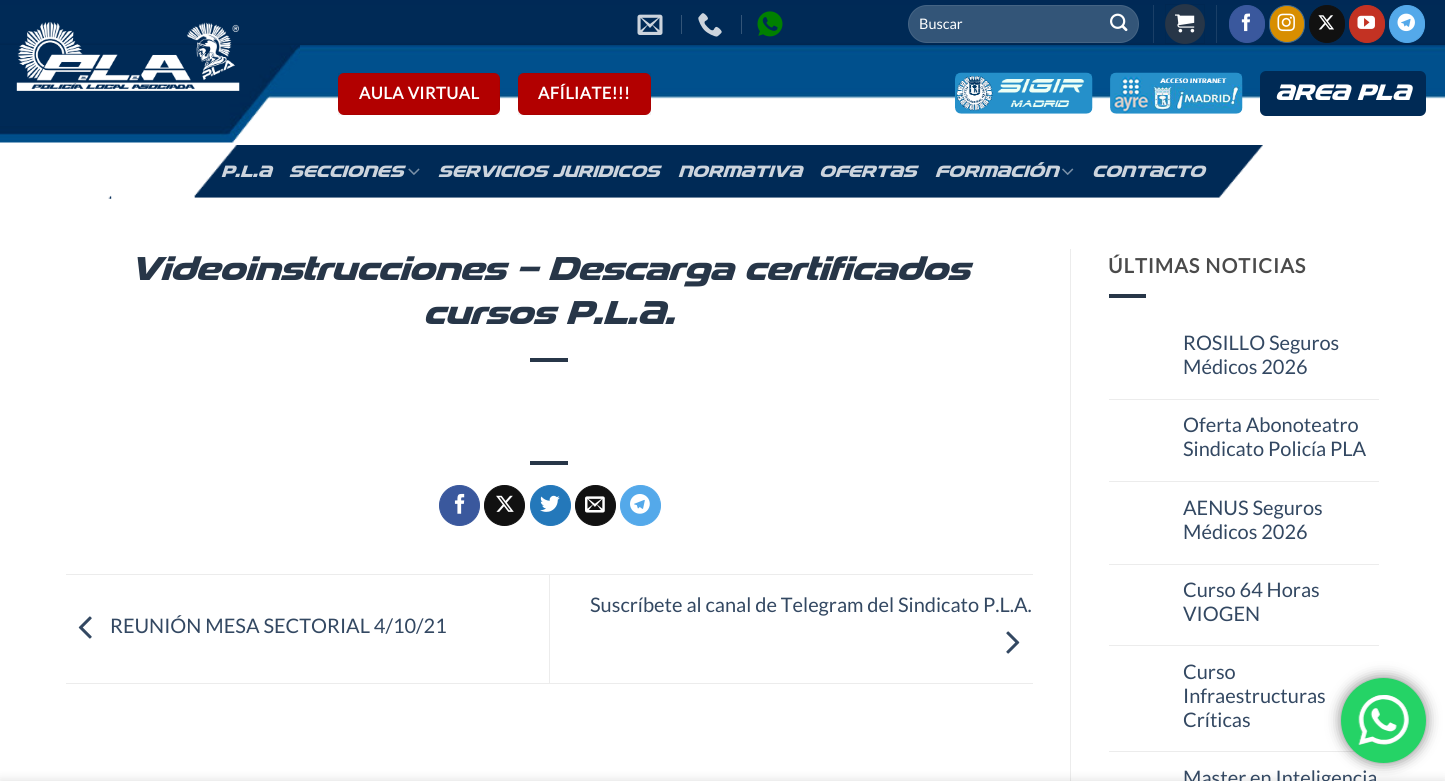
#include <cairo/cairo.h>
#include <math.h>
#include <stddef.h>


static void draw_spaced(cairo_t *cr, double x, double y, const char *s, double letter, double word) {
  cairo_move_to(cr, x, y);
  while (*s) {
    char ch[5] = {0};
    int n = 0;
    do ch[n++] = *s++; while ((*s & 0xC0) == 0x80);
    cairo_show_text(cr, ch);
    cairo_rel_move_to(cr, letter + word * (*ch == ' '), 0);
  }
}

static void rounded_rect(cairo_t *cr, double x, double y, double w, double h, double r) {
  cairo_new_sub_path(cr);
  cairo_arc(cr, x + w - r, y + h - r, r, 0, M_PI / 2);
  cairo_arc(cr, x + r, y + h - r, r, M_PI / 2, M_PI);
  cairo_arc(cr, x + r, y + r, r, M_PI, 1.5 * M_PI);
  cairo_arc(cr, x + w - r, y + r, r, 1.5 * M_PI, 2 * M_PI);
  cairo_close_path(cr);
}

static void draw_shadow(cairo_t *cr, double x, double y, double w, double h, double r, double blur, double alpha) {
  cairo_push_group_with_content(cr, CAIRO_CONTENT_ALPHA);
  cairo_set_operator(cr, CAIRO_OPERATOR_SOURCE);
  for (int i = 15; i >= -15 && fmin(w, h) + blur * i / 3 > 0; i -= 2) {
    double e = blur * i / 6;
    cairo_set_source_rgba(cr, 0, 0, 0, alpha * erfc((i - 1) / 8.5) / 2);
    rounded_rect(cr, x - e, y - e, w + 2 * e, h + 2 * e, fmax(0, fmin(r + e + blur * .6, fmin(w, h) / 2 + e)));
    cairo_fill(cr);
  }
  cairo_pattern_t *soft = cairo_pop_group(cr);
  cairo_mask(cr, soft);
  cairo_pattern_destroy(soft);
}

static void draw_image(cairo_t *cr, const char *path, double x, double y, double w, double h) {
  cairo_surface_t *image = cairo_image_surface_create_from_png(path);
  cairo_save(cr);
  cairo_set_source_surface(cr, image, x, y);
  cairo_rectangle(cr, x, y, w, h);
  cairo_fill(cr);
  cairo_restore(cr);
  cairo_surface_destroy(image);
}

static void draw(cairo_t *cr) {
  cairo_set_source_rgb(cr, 1, 1, 1);
  cairo_paint(cr);
  draw_image(cr, "images/1.png", 0, 0, 1445, 45);
  draw_image(cr, "images/2.png", 637, 14, 26, 21);
  cairo_set_source_rgb(cr, 51 / 255.0, 85 / 255.0, 120 / 255.0);
  cairo_rectangle(cr, 681, 15, 1, 19);
  cairo_fill(cr);
  draw_image(cr, "images/3.png", 698, 13, 24, 24);
  cairo_rectangle(cr, 741, 15, 1, 19);
  cairo_fill(cr);
  draw_image(cr, "images/4.png", 757, 11, 26, 26);
  rounded_rect(cr, 908, 5, 231, 38, 19);
  cairo_fill(cr);
  rounded_rect(cr, 908.5, 5.5, 230, 37, 18.5);
  cairo_set_source_rgba(cr, 1, 1, 1, 0.09);
  cairo_set_line_width(cr, 1);
  cairo_stroke(cr);
  draw_image(cr, "images/5.png", 1110, 13, 18, 19);
  cairo_set_source_rgb(cr, 26 / 255.0, 63 / 255.0, 103 / 255.0);
  cairo_rectangle(cr, 1153, 5, 1, 38);
  cairo_fill(cr);
  cairo_set_source_rgb(cr, 39 / 255.0, 54 / 255.0, 72 / 255.0);
  cairo_arc(cr, 1185, 24, 20, 0, 2 * M_PI);
  cairo_fill(cr);
  cairo_rectangle(cr, 1165.5, 4.5, 39, 39);
  cairo_set_source_rgba(cr, 0, 0, 0, 0.05);
  cairo_stroke(cr);
  draw_image(cr, "images/6.png", 1175, 14, 20, 19);
  cairo_set_source_rgb(cr, 26 / 255.0, 63 / 255.0, 103 / 255.0);
  cairo_rectangle(cr, 1216, 5, 1, 38);
  cairo_fill(cr);
  cairo_set_source_rgb(cr, 58 / 255.0, 88 / 255.0, 157 / 255.0);
  rounded_rect(cr, 1229.5, 5.5, 35, 37, 17.5);
  cairo_fill_preserve(cr);
  cairo_stroke(cr);
  draw_image(cr, "images/7.png", 1241, 13, 9, 19);
  cairo_set_source_rgb(cr, 216 / 255.0, 142 / 255.0, 0);
  rounded_rect(cr, 1269.5, 5.5, 35, 37, 17.5);
  cairo_fill_preserve(cr);
  cairo_set_source_rgb(cr, 59 / 255.0, 105 / 255.0, 148 / 255.0);
  cairo_stroke(cr);
  draw_image(cr, "images/8.png", 1277, 13, 18, 19);
  cairo_set_source_rgb(cr, 17 / 255.0, 17 / 255.0, 17 / 255.0);
  rounded_rect(cr, 1309.5, 5.5, 35, 37, 17.5);
  cairo_fill_preserve(cr);
  cairo_stroke(cr);
  draw_image(cr, "images/9.png", 1318, 15, 16, 15);
  cairo_set_source_rgb(cr, 195 / 255.0, 50 / 255.0, 35 / 255.0);
  rounded_rect(cr, 1349.5, 5.5, 35, 37, 17.5);
  cairo_fill_preserve(cr);
  cairo_stroke(cr);
  draw_image(cr, "images/10.png", 1357, 15, 18, 14);
  cairo_set_source_rgb(cr, 84 / 255.0, 169 / 255.0, 234 / 255.0);
  rounded_rect(cr, 1389.5, 5.5, 35, 37, 17.5);
  cairo_fill_preserve(cr);
  cairo_stroke(cr);
  draw_image(cr, "images/11.png", 1397, 13, 18, 19);
  draw_image(cr, "images/12.png", 266, 45, 1179, 54);
  draw_image(cr, "images/13.png", 0, 45, 300, 98);
  draw_image(cr, "images/14.png", 16, 21, 224, 70);
  cairo_set_source_rgb(cr, 178 / 255.0, 0, 0);
  rounded_rect(cr, 338, 73, 162, 42, 6);
  cairo_fill(cr);
  cairo_rectangle(cr, 338.5, 73.5, 161, 41);
  cairo_set_source_rgba(cr, 0, 0, 0, 0.05);
  cairo_stroke(cr);
  cairo_set_source_rgb(cr, 178 / 255.0, 0, 0);
  rounded_rect(cr, 518, 73, 133, 42, 6);
  cairo_fill(cr);
  cairo_rectangle(cr, 518.5, 73.5, 132, 41);
  cairo_set_source_rgba(cr, 0, 0, 0, 0.05);
  cairo_stroke(cr);
  draw_image(cr, "images/15.png", 955, 72, 138, 42);
  draw_image(cr, "images/16.png", 1110, 72, 133, 42);
  cairo_set_source_rgb(cr, 0, 42 / 255.0, 85 / 255.0);
  rounded_rect(cr, 1260, 71, 166, 45, 6);
  cairo_fill(cr);
  draw_image(cr, "images/17.png", 108, 145, 1155, 54);
  draw_image(cr, "images/18.png", 408, 168, 12, 7);
  draw_image(cr, "images/19.png", 1062, 168, 12, 7);
  cairo_set_source_rgb(cr, 39 / 255.0, 54 / 255.0, 72 / 255.0);
  cairo_rectangle(cr, 530, 358, 38, 4);
  cairo_fill(cr);
  cairo_rectangle(cr, 530, 461, 38, 4);
  cairo_fill(cr);
  cairo_set_source_rgb(cr, 58 / 255.0, 88 / 255.0, 157 / 255.0);
  cairo_arc(cr, 459.5, 505.5, 20, 0, 2 * M_PI);
  cairo_fill_preserve(cr);
  cairo_stroke(cr);
  draw_image(cr, "images/20.png", 454, 493, 11, 21);
  cairo_set_source_rgb(cr, 17 / 255.0, 17 / 255.0, 17 / 255.0);
  cairo_arc(cr, 504.5, 505.5, 20, 0, 2 * M_PI);
  cairo_fill_preserve(cr);
  cairo_stroke(cr);
  draw_image(cr, "images/21.png", 496, 495, 18, 17);
  cairo_set_source_rgb(cr, 36 / 255.0, 120 / 255.0, 186 / 255.0);
  cairo_arc(cr, 550.5, 505.5, 20, 0, 2 * M_PI);
  cairo_fill_preserve(cr);
  cairo_stroke(cr);
  draw_image(cr, "images/22.png", 540, 495, 20, 17);
  cairo_set_source_rgb(cr, 17 / 255.0, 17 / 255.0, 17 / 255.0);
  cairo_arc(cr, 595.5, 505.5, 20, 0, 2 * M_PI);
  cairo_fill_preserve(cr);
  cairo_stroke(cr);
  draw_image(cr, "images/23.png", 585, 496, 20, 17);
  cairo_set_source_rgb(cr, 84 / 255.0, 169 / 255.0, 234 / 255.0);
  cairo_arc(cr, 640.5, 505.5, 20, 0, 2 * M_PI);
  cairo_fill_preserve(cr);
  cairo_stroke(cr);
  draw_image(cr, "images/24.png", 630, 494, 20, 20);
  cairo_set_source_rgb(cr, 236 / 255.0, 236 / 255.0, 236 / 255.0);
  cairo_rectangle(cr, 66, 574, 967, 1);
  cairo_fill(cr);
  cairo_rectangle(cr, 66, 683, 967, 1);
  cairo_fill(cr);
  cairo_rectangle(cr, 549, 575, 1, 108);
  cairo_fill(cr);
  draw_image(cr, "images/25.png", 1006, 631, 14, 23);
  draw_image(cr, "images/26.png", 78, 616, 14, 23);
  cairo_rectangle(cr, 1070, 249, 1, 532);
  cairo_fill(cr);
  cairo_set_source_rgb(cr, 39 / 255.0, 54 / 255.0, 72 / 255.0);
  cairo_rectangle(cr, 1109, 294, 37, 4);
  cairo_fill(cr);
  cairo_set_source_rgb(cr, 236 / 255.0, 236 / 255.0, 236 / 255.0);
  cairo_rectangle(cr, 1109, 399, 270, 1);
  cairo_fill(cr);
  cairo_rectangle(cr, 1109, 481, 270, 1);
  cairo_fill(cr);
  cairo_rectangle(cr, 1109, 564, 270, 1);
  cairo_fill(cr);
  cairo_rectangle(cr, 1109, 645, 270, 1);
  cairo_fill(cr);
  cairo_rectangle(cr, 1109, 751, 246, 1);
  cairo_fill(cr);
  cairo_set_source_rgb(cr, 0, 0, 0);
  draw_shadow(cr, 1341, 678, 85, 85, 42.5, 7, 0.5);
  cairo_set_source_rgb(cr, 37 / 255.0, 211 / 255.0, 102 / 255.0);
  cairo_arc(cr, 1383.5, 720.5, 42.5, 0, 2 * M_PI);
  cairo_fill(cr);
  draw_image(cr, "images/27.png", 1358, 695, 51, 50);
  cairo_set_source_rgb(cr, 0, 0, 0);
  draw_shadow(cr, 0, 781, 1445, 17, 0, 5.5, 0.14);
  cairo_select_font_face(cr, "Lato", CAIRO_FONT_SLANT_NORMAL, CAIRO_FONT_WEIGHT_NORMAL);
  cairo_set_font_size(cr, 14.5);
  cairo_set_source_rgb(cr, 1, 1, 1);
  cairo_move_to(cr, 919, 29);
  cairo_show_text(cr, "Buscar");
  cairo_select_font_face(cr, "Lato", CAIRO_FONT_SLANT_NORMAL, CAIRO_FONT_WEIGHT_BOLD);
  cairo_set_font_size(cr, 16.5);
  draw_spaced(cr, 359, 99, "AULA VIRTUAL", 0.5, 0);
  draw_spaced(cr, 538, 99, "AFÍLIATE!!!", 0.5, 0);
  cairo_select_font_face(cr, "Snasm", CAIRO_FONT_SLANT_ITALIC, CAIRO_FONT_WEIGHT_BOLD);
  cairo_set_font_size(cr, 23);
  draw_spaced(cr, 1275, 100, "AREA PLA", 0.25, 0);
  cairo_set_font_size(cr, 16.9);
  cairo_set_source_rgb(cr, 204 / 255.0, 212 / 255.0, 221 / 255.0);
  draw_spaced(cr, 221, 177, "P.L.A", 0.3, 0);
  draw_spaced(cr, 289, 177, "SECCIONES", 0.3, 0);
  draw_spaced(cr, 438, 177, "SERVICIOS JURIDICOS", 0.3, 0);
  draw_spaced(cr, 678, 177, "NORMATIVA", 0.3, 0);
  draw_spaced(cr, 819, 177, "OFERTAS", 0.3, 0);
  draw_spaced(cr, 935, 177, "FORMACIÓN", 0.3, 0);
  draw_spaced(cr, 1092, 177, "CONTACTO", 0.3, 0);
  cairo_set_font_size(cr, 34);
  cairo_set_source_rgb(cr, 39 / 255.0, 54 / 255.0, 72 / 255.0);
  cairo_move_to(cr, 130, 280);
  cairo_show_text(cr, "Videoinstrucciones – Descarga certificados");
  cairo_move_to(cr, 423, 324);
  cairo_show_text(cr, "cursos P.L.A.");
  cairo_select_font_face(cr, "Lato", CAIRO_FONT_SLANT_NORMAL, CAIRO_FONT_WEIGHT_NORMAL);
  cairo_set_font_size(cr, 20);
  cairo_set_source_rgb(cr, 51 / 255.0, 72 / 255.0, 98 / 255.0);
  cairo_move_to(cr, 590, 612);
  cairo_show_text(cr, "Suscríbete al canal de Telegram del Sindicato P.L.A.");
  cairo_move_to(cr, 110, 633);
  cairo_show_text(cr, "REUNIÓN MESA SECTORIAL 4/10/21");
  cairo_select_font_face(cr, "Lato", CAIRO_FONT_SLANT_NORMAL, CAIRO_FONT_WEIGHT_BOLD);
  cairo_set_source_rgb(cr, 74 / 255.0, 74 / 255.0, 74 / 255.0);
  draw_spaced(cr, 1108, 273, "ÚLTIMAS NOTICIAS", 1, 0);
  cairo_select_font_face(cr, "Lato", CAIRO_FONT_SLANT_NORMAL, CAIRO_FONT_WEIGHT_NORMAL);
  cairo_set_source_rgb(cr, 51 / 255.0, 72 / 255.0, 98 / 255.0);
  cairo_move_to(cr, 1183, 350);
  cairo_show_text(cr, "ROSILLO Seguros");
  cairo_move_to(cr, 1183, 374);
  cairo_show_text(cr, "Médicos 2026");
  cairo_move_to(cr, 1183, 432);
  cairo_show_text(cr, "Oferta Abonoteatro");
  cairo_move_to(cr, 1183, 456);
  cairo_show_text(cr, "Sindicato Policía PLA");
  cairo_move_to(cr, 1183, 515);
  cairo_show_text(cr, "AENUS Seguros");
  cairo_move_to(cr, 1183, 539);
  cairo_show_text(cr, "Médicos 2026");
  cairo_move_to(cr, 1183, 597);
  cairo_show_text(cr, "Curso 64 Horas");
  cairo_move_to(cr, 1183, 621);
  cairo_show_text(cr, "VIOGEN");
  cairo_move_to(cr, 1183, 679);
  cairo_show_text(cr, "Curso");
  cairo_move_to(cr, 1183, 703);
  cairo_show_text(cr, "Infraestructuras");
  cairo_move_to(cr, 1183, 727);
  cairo_show_text(cr, "Críticas");
  cairo_move_to(cr, 1183, 785);
  cairo_show_text(cr, "Master en Inteligencia");
}

int main(void) {
  cairo_surface_t *surface = cairo_image_surface_create(CAIRO_FORMAT_RGB24, 1445, 781);
  cairo_t *cr = cairo_create(surface);
  cairo_font_options_t *options = cairo_font_options_create();
  cairo_font_options_set_hint_metrics(options, CAIRO_HINT_METRICS_OFF);
  cairo_font_options_set_hint_style(options, CAIRO_HINT_STYLE_NONE);
  cairo_set_font_options(cr, options);
  cairo_set_miter_limit(cr, 4);
  draw(cr);
  cairo_surface_write_to_png(surface, "out.png");
  cairo_font_options_destroy(options);
  cairo_destroy(cr);
  cairo_surface_destroy(surface);
  return 0;
}
